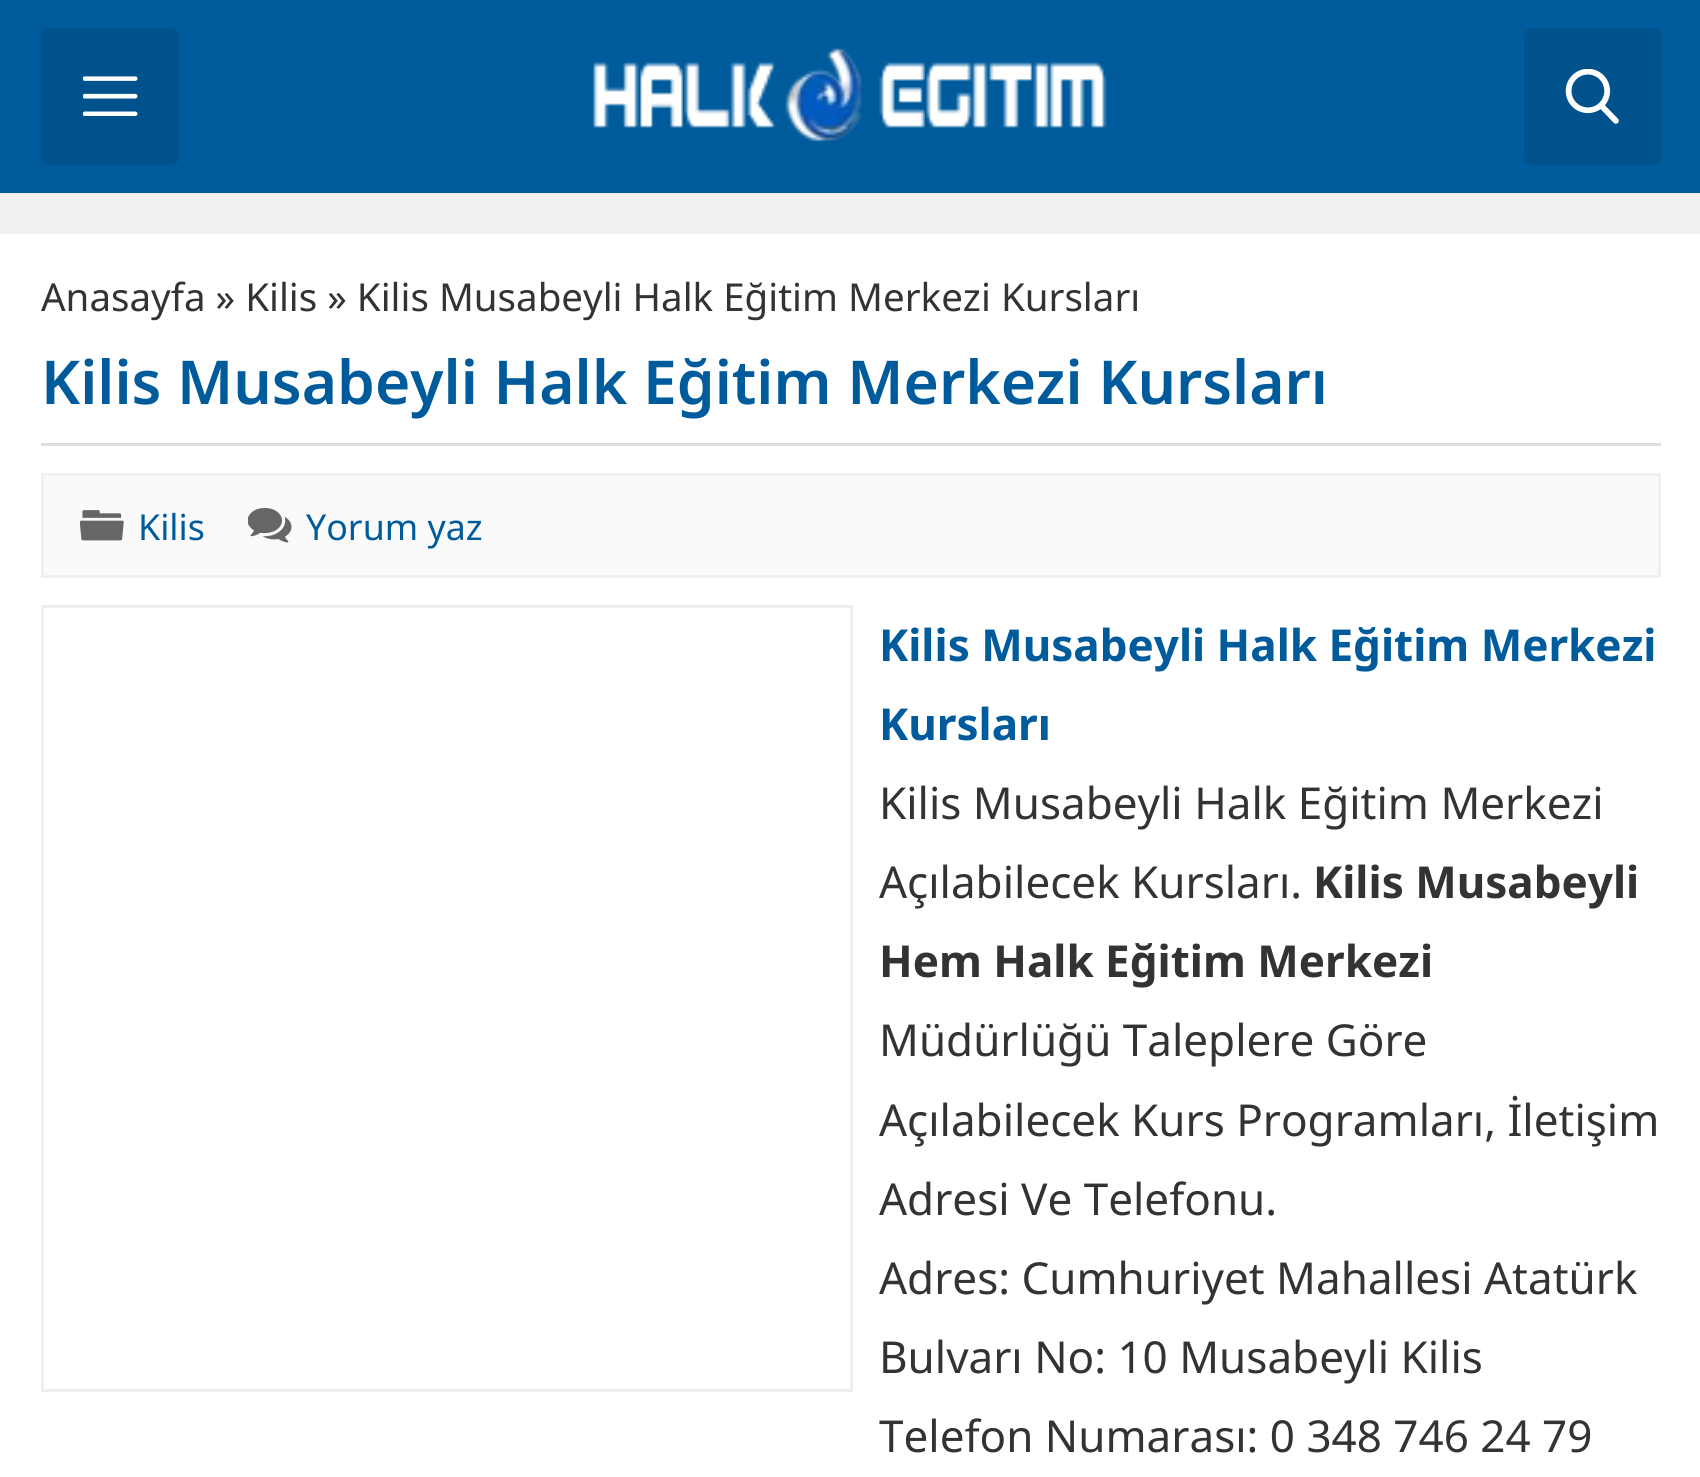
#include <cairo/cairo.h>
#include <math.h>
#include <stddef.h>


static void rounded_rect(cairo_t *cr, double x, double y, double w, double h, double r) {
  cairo_new_sub_path(cr);
  cairo_arc(cr, x + w - r, y + h - r, r, 0, M_PI / 2);
  cairo_arc(cr, x + r, y + h - r, r, M_PI / 2, M_PI);
  cairo_arc(cr, x + r, y + r, r, M_PI, 1.5 * M_PI);
  cairo_arc(cr, x + w - r, y + r, r, 1.5 * M_PI, 2 * M_PI);
  cairo_close_path(cr);
}

static void draw_image(cairo_t *cr, const char *path, double x, double y, double w, double h) {
  cairo_surface_t *image = cairo_image_surface_create_from_png(path);
  cairo_save(cr);
  cairo_set_source_surface(cr, image, x, y);
  cairo_rectangle(cr, x, y, w, h);
  cairo_fill(cr);
  cairo_restore(cr);
  cairo_surface_destroy(image);
}

static void draw(cairo_t *cr) {
  cairo_set_source_rgb(cr, 241 / 255.0, 241 / 255.0, 241 / 255.0);
  cairo_paint(cr);
  cairo_set_source_rgb(cr, 0, 91 / 255.0, 156 / 255.0);
  cairo_rectangle(cr, 0, 0, 1700, 193);
  cairo_fill(cr);
  cairo_set_source_rgb(cr, 0, 82 / 255.0, 140 / 255.0);
  rounded_rect(cr, 41, 28, 138, 137, 8);
  cairo_fill(cr);
  draw_image(cr, "images/1.png", 83, 76, 55, 40);
  draw_image(cr, "images/2.png", 593, 48, 514, 94);
  rounded_rect(cr, 1524, 28, 137, 137, 8);
  cairo_fill(cr);
  draw_image(cr, "images/3.png", 1565, 69, 54, 55);
  cairo_set_source_rgb(cr, 1, 1, 1);
  cairo_rectangle(cr, 0, 234, 1700, 1243);
  cairo_fill(cr);
  cairo_set_source_rgb(cr, 221 / 255.0, 221 / 255.0, 221 / 255.0);
  cairo_rectangle(cr, 41, 443, 1620, 3);
  cairo_fill(cr);
  cairo_set_source_rgb(cr, 250 / 255.0, 250 / 255.0, 250 / 255.0);
  cairo_rectangle(cr, 42.5, 474.5, 1617, 102);
  cairo_fill_preserve(cr);
  cairo_set_source_rgb(cr, 240 / 255.0, 240 / 255.0, 240 / 255.0);
  cairo_set_line_width(cr, 3);
  cairo_stroke(cr);
  draw_image(cr, "images/4.png", 80, 510, 44, 31);
  draw_image(cr, "images/5.png", 248, 508, 44, 35);
  cairo_rectangle(cr, 42.5, 606.5, 809, 784);
  cairo_set_source_rgb(cr, 238 / 255.0, 238 / 255.0, 238 / 255.0);
  cairo_stroke(cr);
  cairo_select_font_face(cr, "Noto Sans", CAIRO_FONT_SLANT_NORMAL, CAIRO_FONT_WEIGHT_NORMAL);
  cairo_set_font_size(cr, 38.5);
  cairo_set_source_rgb(cr, 51 / 255.0, 51 / 255.0, 51 / 255.0);
  cairo_move_to(cr, 41, 311);
  cairo_show_text(cr, "Anasayfa » Kilis » Kilis Musabeyli Halk Eğitim Merkezi Kursları");
  cairo_select_font_face(cr, "Noto Sans SemiBold", CAIRO_FONT_SLANT_NORMAL, CAIRO_FONT_WEIGHT_NORMAL);
  cairo_set_font_size(cr, 60.5);
  cairo_set_source_rgb(cr, 0, 91 / 255.0, 156 / 255.0);
  cairo_move_to(cr, 41, 404);
  cairo_show_text(cr, "Kilis Musabeyli Halk Eğitim Merkezi Kursları");
  cairo_select_font_face(cr, "Noto Sans", CAIRO_FONT_SLANT_NORMAL, CAIRO_FONT_WEIGHT_NORMAL);
  cairo_set_font_size(cr, 35.75);
  cairo_move_to(cr, 138, 540);
  cairo_show_text(cr, "Kilis");
  cairo_move_to(cr, 306, 540);
  cairo_show_text(cr, "Yorum yaz");
  cairo_select_font_face(cr, "Noto Sans", CAIRO_FONT_SLANT_NORMAL, CAIRO_FONT_WEIGHT_BOLD);
  cairo_set_font_size(cr, 44);
  cairo_move_to(cr, 879, 661);
  cairo_show_text(cr, "Kilis Musabeyli Halk Eğitim Merkezi");
  cairo_move_to(cr, 879, 740);
  cairo_show_text(cr, "Kursları");
  cairo_select_font_face(cr, "Noto Sans", CAIRO_FONT_SLANT_NORMAL, CAIRO_FONT_WEIGHT_NORMAL);
  cairo_set_source_rgb(cr, 51 / 255.0, 51 / 255.0, 51 / 255.0);
  cairo_move_to(cr, 879, 819);
  cairo_show_text(cr, "Kilis Musabeyli Halk Eğitim Merkezi");
  cairo_move_to(cr, 879, 898);
  cairo_show_text(cr, "Açılabilecek Kursları.");
  cairo_select_font_face(cr, "Noto Sans", CAIRO_FONT_SLANT_NORMAL, CAIRO_FONT_WEIGHT_BOLD);
  cairo_move_to(cr, 1313, 898);
  cairo_show_text(cr, "Kilis Musabeyli");
  cairo_move_to(cr, 879, 977);
  cairo_show_text(cr, "Hem Halk Eğitim Merkezi");
  cairo_select_font_face(cr, "Noto Sans", CAIRO_FONT_SLANT_NORMAL, CAIRO_FONT_WEIGHT_NORMAL);
  cairo_move_to(cr, 879, 1056);
  cairo_show_text(cr, "Müdürlüğü Taleplere Göre");
  cairo_move_to(cr, 879, 1136);
  cairo_show_text(cr, "Açılabilecek Kurs Programları, İletişim");
  cairo_move_to(cr, 879, 1215);
  cairo_show_text(cr, "Adresi Ve Telefonu.");
  cairo_move_to(cr, 879, 1294);
  cairo_show_text(cr, "Adres: Cumhuriyet Mahallesi Atatürk");
  cairo_move_to(cr, 879, 1373);
  cairo_show_text(cr, "Bulvarı No: 10 Musabeyli Kilis");
  cairo_move_to(cr, 879, 1452);
  cairo_show_text(cr, "Telefon Numarası: 0 348 746 24 79");
}

int main(void) {
  cairo_surface_t *surface = cairo_image_surface_create(CAIRO_FORMAT_RGB24, 1700, 1477);
  cairo_t *cr = cairo_create(surface);
  cairo_font_options_t *options = cairo_font_options_create();
  cairo_font_options_set_hint_metrics(options, CAIRO_HINT_METRICS_OFF);
  cairo_font_options_set_hint_style(options, CAIRO_HINT_STYLE_NONE);
  cairo_set_font_options(cr, options);
  cairo_set_miter_limit(cr, 4);
  draw(cr);
  cairo_surface_write_to_png(surface, "out.png");
  cairo_font_options_destroy(options);
  cairo_destroy(cr);
  cairo_surface_destroy(surface);
  return 0;
}
